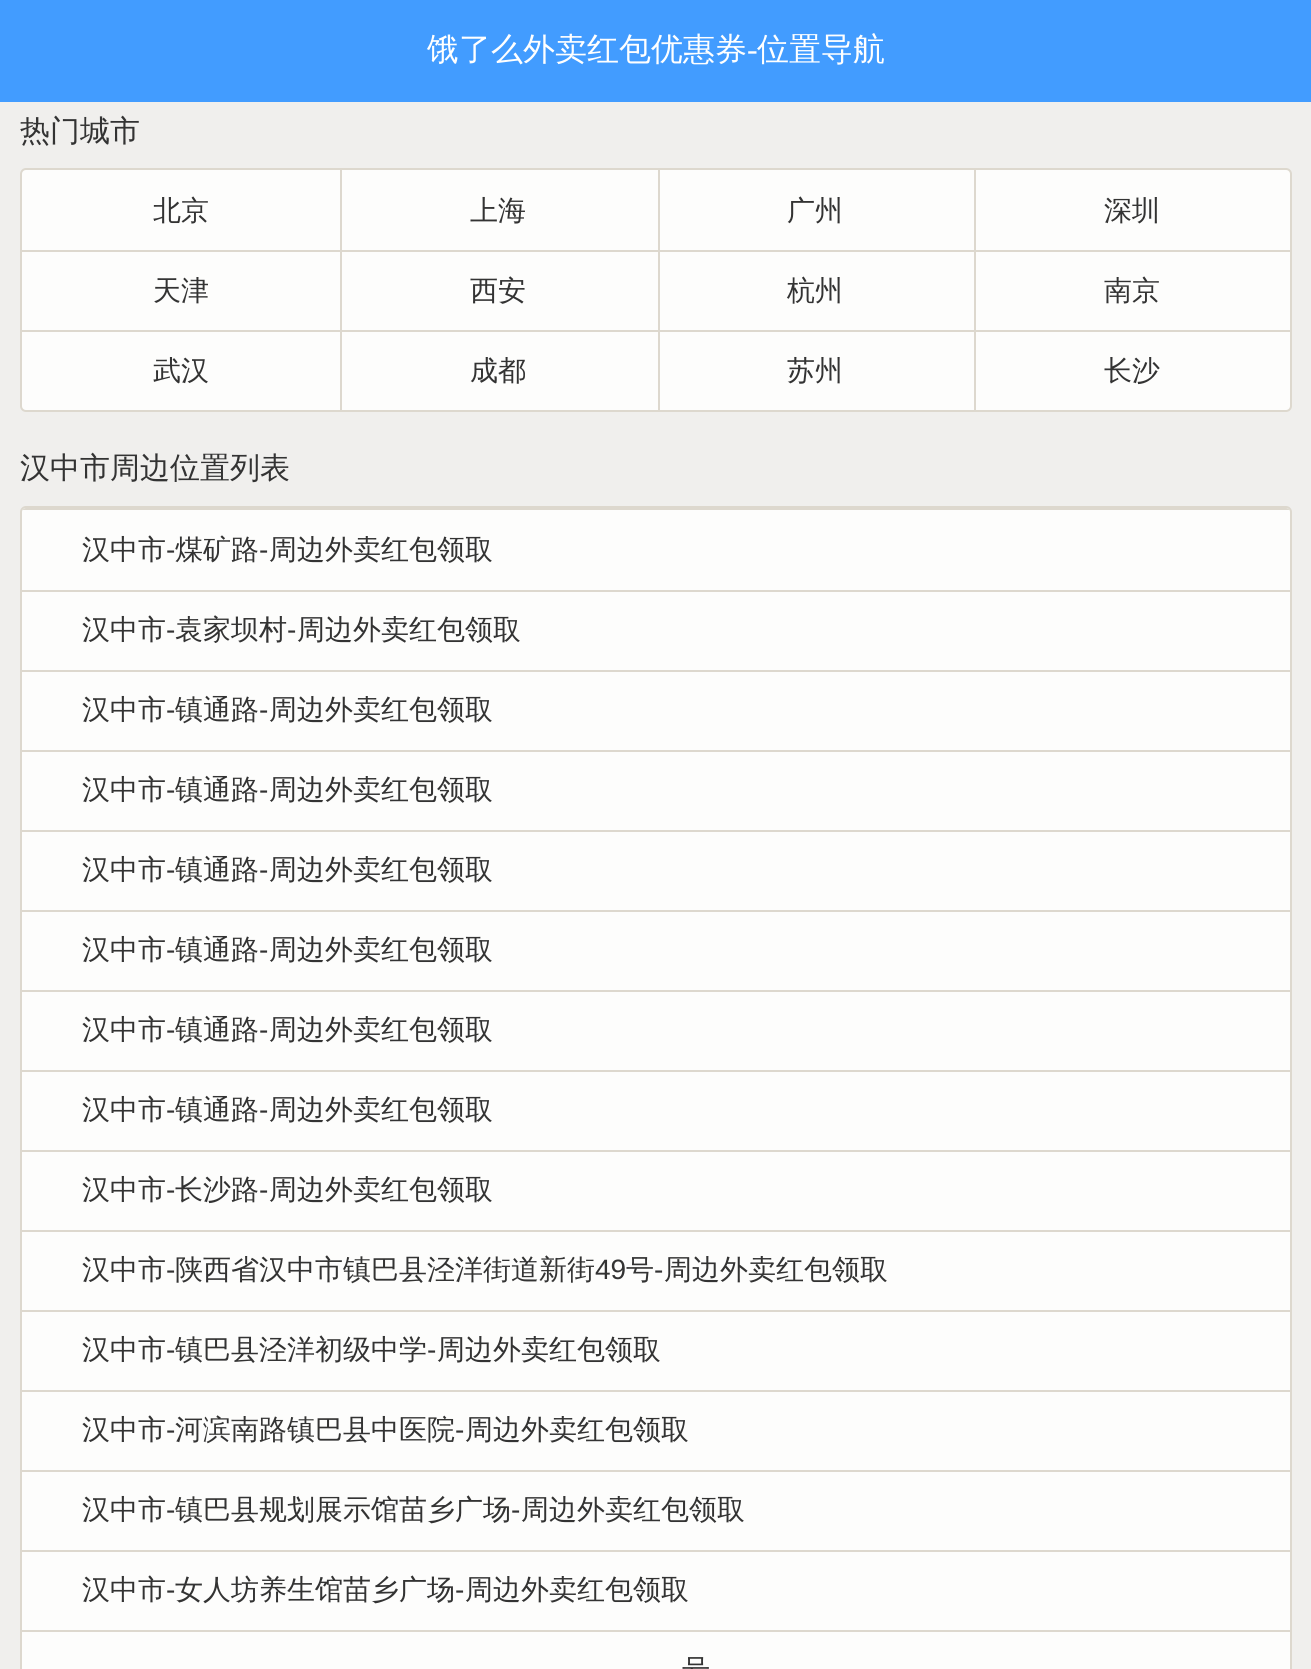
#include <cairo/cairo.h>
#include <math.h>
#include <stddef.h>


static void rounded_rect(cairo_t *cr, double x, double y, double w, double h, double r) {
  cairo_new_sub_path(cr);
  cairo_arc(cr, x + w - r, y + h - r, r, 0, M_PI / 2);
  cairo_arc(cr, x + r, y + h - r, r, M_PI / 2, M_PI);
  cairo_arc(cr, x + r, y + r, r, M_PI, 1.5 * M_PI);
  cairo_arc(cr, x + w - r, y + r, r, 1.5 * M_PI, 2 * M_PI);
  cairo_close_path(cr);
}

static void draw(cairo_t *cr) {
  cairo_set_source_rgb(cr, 240 / 255.0, 239 / 255.0, 237 / 255.0);
  cairo_paint(cr);
  cairo_set_source_rgb(cr, 66 / 255.0, 156 / 255.0, 1);
  cairo_rectangle(cr, 0, 0, 1311, 102);
  cairo_fill(cr);
  cairo_set_source_rgb(cr, 253 / 255.0, 253 / 255.0, 252 / 255.0);
  rounded_rect(cr, 21, 169, 1270, 242, 5);
  cairo_fill_preserve(cr);
  cairo_set_source_rgb(cr, 221 / 255.0, 216 / 255.0, 206 / 255.0);
  cairo_stroke(cr);
  cairo_rectangle(cr, 658, 170, 2, 240);
  cairo_fill(cr);
  cairo_rectangle(cr, 340, 170, 2, 240);
  cairo_fill(cr);
  cairo_rectangle(cr, 974, 170, 2, 240);
  cairo_fill(cr);
  cairo_rectangle(cr, 22, 250, 1268, 2);
  cairo_fill(cr);
  cairo_rectangle(cr, 22, 330, 1268, 2);
  cairo_fill(cr);
  cairo_set_source_rgb(cr, 253 / 255.0, 253 / 255.0, 252 / 255.0);
  rounded_rect(cr, 21, 507, 1270, 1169, 5);
  cairo_fill_preserve(cr);
  cairo_set_source_rgb(cr, 221 / 255.0, 216 / 255.0, 206 / 255.0);
  cairo_stroke(cr);
  cairo_save(cr);
  rounded_rect(cr, 22, 508, 1268, 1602, 4);
  cairo_clip(cr);
  cairo_rectangle(cr, 22, 508, 1268, 2);
  cairo_fill(cr);
  cairo_restore(cr);
  cairo_rectangle(cr, 22, 590, 1268, 2);
  cairo_fill(cr);
  cairo_rectangle(cr, 22, 670, 1268, 2);
  cairo_fill(cr);
  cairo_rectangle(cr, 22, 750, 1268, 2);
  cairo_fill(cr);
  cairo_rectangle(cr, 22, 830, 1268, 2);
  cairo_fill(cr);
  cairo_rectangle(cr, 22, 910, 1268, 2);
  cairo_fill(cr);
  cairo_rectangle(cr, 22, 990, 1268, 2);
  cairo_fill(cr);
  cairo_rectangle(cr, 22, 1070, 1268, 2);
  cairo_fill(cr);
  cairo_rectangle(cr, 22, 1150, 1268, 2);
  cairo_fill(cr);
  cairo_rectangle(cr, 22, 1230, 1268, 2);
  cairo_fill(cr);
  cairo_rectangle(cr, 22, 1310, 1268, 2);
  cairo_fill(cr);
  cairo_rectangle(cr, 22, 1390, 1268, 2);
  cairo_fill(cr);
  cairo_rectangle(cr, 22, 1470, 1268, 2);
  cairo_fill(cr);
  cairo_rectangle(cr, 22, 1550, 1268, 2);
  cairo_fill(cr);
  cairo_rectangle(cr, 22, 1630, 1268, 2);
  cairo_fill(cr);
  cairo_select_font_face(cr, "WenQuanYi Zen Hei Medium", CAIRO_FONT_SLANT_NORMAL, CAIRO_FONT_WEIGHT_NORMAL);
  cairo_set_font_size(cr, 32);
  cairo_set_source_rgb(cr, 1, 1, 1);
  cairo_move_to(cr, 427, 60);
  cairo_show_text(cr, "饿了么外卖红包优惠券");
  cairo_select_font_face(cr, "Liberation Serif", CAIRO_FONT_SLANT_NORMAL, CAIRO_FONT_WEIGHT_NORMAL);
  cairo_move_to(cr, 747, 60);
  cairo_show_text(cr, "-");
  cairo_select_font_face(cr, "WenQuanYi Zen Hei Medium", CAIRO_FONT_SLANT_NORMAL, CAIRO_FONT_WEIGHT_NORMAL);
  cairo_move_to(cr, 757, 60);
  cairo_show_text(cr, "位置导航");
  cairo_set_font_size(cr, 30);
  cairo_set_source_rgb(cr, 51 / 255.0, 51 / 255.0, 51 / 255.0);
  cairo_move_to(cr, 20, 141);
  cairo_show_text(cr, "热门城市");
  cairo_set_font_size(cr, 28);
  cairo_move_to(cr, 153, 220);
  cairo_show_text(cr, "北京");
  cairo_move_to(cr, 470, 220);
  cairo_show_text(cr, "上海");
  cairo_move_to(cr, 787, 220);
  cairo_show_text(cr, "广州");
  cairo_move_to(cr, 1104, 220);
  cairo_show_text(cr, "深圳");
  cairo_move_to(cr, 153, 300);
  cairo_show_text(cr, "天津");
  cairo_move_to(cr, 470, 300);
  cairo_show_text(cr, "西安");
  cairo_move_to(cr, 787, 300);
  cairo_show_text(cr, "杭州");
  cairo_move_to(cr, 1104, 300);
  cairo_show_text(cr, "南京");
  cairo_move_to(cr, 153, 380);
  cairo_show_text(cr, "武汉");
  cairo_move_to(cr, 470, 380);
  cairo_show_text(cr, "成都");
  cairo_move_to(cr, 787, 380);
  cairo_show_text(cr, "苏州");
  cairo_move_to(cr, 1104, 380);
  cairo_show_text(cr, "长沙");
  cairo_set_font_size(cr, 30);
  cairo_move_to(cr, 20, 478);
  cairo_show_text(cr, "汉中市周边位置列表");
  cairo_set_font_size(cr, 28);
  cairo_move_to(cr, 82, 559);
  cairo_show_text(cr, "汉中市");
  cairo_select_font_face(cr, "Liberation Sans", CAIRO_FONT_SLANT_NORMAL, CAIRO_FONT_WEIGHT_NORMAL);
  cairo_move_to(cr, 166, 559);
  cairo_show_text(cr, "-");
  cairo_select_font_face(cr, "WenQuanYi Zen Hei Medium", CAIRO_FONT_SLANT_NORMAL, CAIRO_FONT_WEIGHT_NORMAL);
  cairo_move_to(cr, 175, 559);
  cairo_show_text(cr, "煤矿路");
  cairo_select_font_face(cr, "Liberation Sans", CAIRO_FONT_SLANT_NORMAL, CAIRO_FONT_WEIGHT_NORMAL);
  cairo_move_to(cr, 259, 559);
  cairo_show_text(cr, "-");
  cairo_select_font_face(cr, "WenQuanYi Zen Hei Medium", CAIRO_FONT_SLANT_NORMAL, CAIRO_FONT_WEIGHT_NORMAL);
  cairo_move_to(cr, 269, 559);
  cairo_show_text(cr, "周边外卖红包领取");
  cairo_move_to(cr, 82, 639);
  cairo_show_text(cr, "汉中市");
  cairo_select_font_face(cr, "Liberation Sans", CAIRO_FONT_SLANT_NORMAL, CAIRO_FONT_WEIGHT_NORMAL);
  cairo_move_to(cr, 166, 639);
  cairo_show_text(cr, "-");
  cairo_select_font_face(cr, "WenQuanYi Zen Hei Medium", CAIRO_FONT_SLANT_NORMAL, CAIRO_FONT_WEIGHT_NORMAL);
  cairo_move_to(cr, 175, 639);
  cairo_show_text(cr, "袁家坝村");
  cairo_select_font_face(cr, "Liberation Sans", CAIRO_FONT_SLANT_NORMAL, CAIRO_FONT_WEIGHT_NORMAL);
  cairo_move_to(cr, 287, 639);
  cairo_show_text(cr, "-");
  cairo_select_font_face(cr, "WenQuanYi Zen Hei Medium", CAIRO_FONT_SLANT_NORMAL, CAIRO_FONT_WEIGHT_NORMAL);
  cairo_move_to(cr, 297, 639);
  cairo_show_text(cr, "周边外卖红包领取");
  cairo_move_to(cr, 82, 719);
  cairo_show_text(cr, "汉中市");
  cairo_select_font_face(cr, "Liberation Sans", CAIRO_FONT_SLANT_NORMAL, CAIRO_FONT_WEIGHT_NORMAL);
  cairo_move_to(cr, 166, 719);
  cairo_show_text(cr, "-");
  cairo_select_font_face(cr, "WenQuanYi Zen Hei Medium", CAIRO_FONT_SLANT_NORMAL, CAIRO_FONT_WEIGHT_NORMAL);
  cairo_move_to(cr, 175, 719);
  cairo_show_text(cr, "镇通路");
  cairo_select_font_face(cr, "Liberation Sans", CAIRO_FONT_SLANT_NORMAL, CAIRO_FONT_WEIGHT_NORMAL);
  cairo_move_to(cr, 259, 719);
  cairo_show_text(cr, "-");
  cairo_select_font_face(cr, "WenQuanYi Zen Hei Medium", CAIRO_FONT_SLANT_NORMAL, CAIRO_FONT_WEIGHT_NORMAL);
  cairo_move_to(cr, 269, 719);
  cairo_show_text(cr, "周边外卖红包领取");
  cairo_move_to(cr, 82, 799);
  cairo_show_text(cr, "汉中市");
  cairo_select_font_face(cr, "Liberation Sans", CAIRO_FONT_SLANT_NORMAL, CAIRO_FONT_WEIGHT_NORMAL);
  cairo_move_to(cr, 166, 799);
  cairo_show_text(cr, "-");
  cairo_select_font_face(cr, "WenQuanYi Zen Hei Medium", CAIRO_FONT_SLANT_NORMAL, CAIRO_FONT_WEIGHT_NORMAL);
  cairo_move_to(cr, 175, 799);
  cairo_show_text(cr, "镇通路");
  cairo_select_font_face(cr, "Liberation Sans", CAIRO_FONT_SLANT_NORMAL, CAIRO_FONT_WEIGHT_NORMAL);
  cairo_move_to(cr, 259, 799);
  cairo_show_text(cr, "-");
  cairo_select_font_face(cr, "WenQuanYi Zen Hei Medium", CAIRO_FONT_SLANT_NORMAL, CAIRO_FONT_WEIGHT_NORMAL);
  cairo_move_to(cr, 269, 799);
  cairo_show_text(cr, "周边外卖红包领取");
  cairo_move_to(cr, 82, 879);
  cairo_show_text(cr, "汉中市");
  cairo_select_font_face(cr, "Liberation Sans", CAIRO_FONT_SLANT_NORMAL, CAIRO_FONT_WEIGHT_NORMAL);
  cairo_move_to(cr, 166, 879);
  cairo_show_text(cr, "-");
  cairo_select_font_face(cr, "WenQuanYi Zen Hei Medium", CAIRO_FONT_SLANT_NORMAL, CAIRO_FONT_WEIGHT_NORMAL);
  cairo_move_to(cr, 175, 879);
  cairo_show_text(cr, "镇通路");
  cairo_select_font_face(cr, "Liberation Sans", CAIRO_FONT_SLANT_NORMAL, CAIRO_FONT_WEIGHT_NORMAL);
  cairo_move_to(cr, 259, 879);
  cairo_show_text(cr, "-");
  cairo_select_font_face(cr, "WenQuanYi Zen Hei Medium", CAIRO_FONT_SLANT_NORMAL, CAIRO_FONT_WEIGHT_NORMAL);
  cairo_move_to(cr, 269, 879);
  cairo_show_text(cr, "周边外卖红包领取");
  cairo_move_to(cr, 82, 959);
  cairo_show_text(cr, "汉中市");
  cairo_select_font_face(cr, "Liberation Sans", CAIRO_FONT_SLANT_NORMAL, CAIRO_FONT_WEIGHT_NORMAL);
  cairo_move_to(cr, 166, 959);
  cairo_show_text(cr, "-");
  cairo_select_font_face(cr, "WenQuanYi Zen Hei Medium", CAIRO_FONT_SLANT_NORMAL, CAIRO_FONT_WEIGHT_NORMAL);
  cairo_move_to(cr, 175, 959);
  cairo_show_text(cr, "镇通路");
  cairo_select_font_face(cr, "Liberation Sans", CAIRO_FONT_SLANT_NORMAL, CAIRO_FONT_WEIGHT_NORMAL);
  cairo_move_to(cr, 259, 959);
  cairo_show_text(cr, "-");
  cairo_select_font_face(cr, "WenQuanYi Zen Hei Medium", CAIRO_FONT_SLANT_NORMAL, CAIRO_FONT_WEIGHT_NORMAL);
  cairo_move_to(cr, 269, 959);
  cairo_show_text(cr, "周边外卖红包领取");
  cairo_move_to(cr, 82, 1039);
  cairo_show_text(cr, "汉中市");
  cairo_select_font_face(cr, "Liberation Sans", CAIRO_FONT_SLANT_NORMAL, CAIRO_FONT_WEIGHT_NORMAL);
  cairo_move_to(cr, 166, 1039);
  cairo_show_text(cr, "-");
  cairo_select_font_face(cr, "WenQuanYi Zen Hei Medium", CAIRO_FONT_SLANT_NORMAL, CAIRO_FONT_WEIGHT_NORMAL);
  cairo_move_to(cr, 175, 1039);
  cairo_show_text(cr, "镇通路");
  cairo_select_font_face(cr, "Liberation Sans", CAIRO_FONT_SLANT_NORMAL, CAIRO_FONT_WEIGHT_NORMAL);
  cairo_move_to(cr, 259, 1039);
  cairo_show_text(cr, "-");
  cairo_select_font_face(cr, "WenQuanYi Zen Hei Medium", CAIRO_FONT_SLANT_NORMAL, CAIRO_FONT_WEIGHT_NORMAL);
  cairo_move_to(cr, 269, 1039);
  cairo_show_text(cr, "周边外卖红包领取");
  cairo_move_to(cr, 82, 1119);
  cairo_show_text(cr, "汉中市");
  cairo_select_font_face(cr, "Liberation Sans", CAIRO_FONT_SLANT_NORMAL, CAIRO_FONT_WEIGHT_NORMAL);
  cairo_move_to(cr, 166, 1119);
  cairo_show_text(cr, "-");
  cairo_select_font_face(cr, "WenQuanYi Zen Hei Medium", CAIRO_FONT_SLANT_NORMAL, CAIRO_FONT_WEIGHT_NORMAL);
  cairo_move_to(cr, 175, 1119);
  cairo_show_text(cr, "镇通路");
  cairo_select_font_face(cr, "Liberation Sans", CAIRO_FONT_SLANT_NORMAL, CAIRO_FONT_WEIGHT_NORMAL);
  cairo_move_to(cr, 259, 1119);
  cairo_show_text(cr, "-");
  cairo_select_font_face(cr, "WenQuanYi Zen Hei Medium", CAIRO_FONT_SLANT_NORMAL, CAIRO_FONT_WEIGHT_NORMAL);
  cairo_move_to(cr, 269, 1119);
  cairo_show_text(cr, "周边外卖红包领取");
  cairo_move_to(cr, 82, 1199);
  cairo_show_text(cr, "汉中市");
  cairo_select_font_face(cr, "Liberation Sans", CAIRO_FONT_SLANT_NORMAL, CAIRO_FONT_WEIGHT_NORMAL);
  cairo_move_to(cr, 166, 1199);
  cairo_show_text(cr, "-");
  cairo_select_font_face(cr, "WenQuanYi Zen Hei Medium", CAIRO_FONT_SLANT_NORMAL, CAIRO_FONT_WEIGHT_NORMAL);
  cairo_move_to(cr, 175, 1199);
  cairo_show_text(cr, "长沙路");
  cairo_select_font_face(cr, "Liberation Sans", CAIRO_FONT_SLANT_NORMAL, CAIRO_FONT_WEIGHT_NORMAL);
  cairo_move_to(cr, 259, 1199);
  cairo_show_text(cr, "-");
  cairo_select_font_face(cr, "WenQuanYi Zen Hei Medium", CAIRO_FONT_SLANT_NORMAL, CAIRO_FONT_WEIGHT_NORMAL);
  cairo_move_to(cr, 269, 1199);
  cairo_show_text(cr, "周边外卖红包领取");
  cairo_move_to(cr, 82, 1279);
  cairo_show_text(cr, "汉中市");
  cairo_select_font_face(cr, "Liberation Sans", CAIRO_FONT_SLANT_NORMAL, CAIRO_FONT_WEIGHT_NORMAL);
  cairo_move_to(cr, 166, 1279);
  cairo_show_text(cr, "-");
  cairo_select_font_face(cr, "WenQuanYi Zen Hei Medium", CAIRO_FONT_SLANT_NORMAL, CAIRO_FONT_WEIGHT_NORMAL);
  cairo_move_to(cr, 175, 1279);
  cairo_show_text(cr, "陕西省汉中市镇巴县泾洋街道新街");
  cairo_select_font_face(cr, "Liberation Sans", CAIRO_FONT_SLANT_NORMAL, CAIRO_FONT_WEIGHT_NORMAL);
  cairo_move_to(cr, 595, 1279);
  cairo_show_text(cr, "49");
  cairo_select_font_face(cr, "WenQuanYi Zen Hei Medium", CAIRO_FONT_SLANT_NORMAL, CAIRO_FONT_WEIGHT_NORMAL);
  cairo_move_to(cr, 626, 1279);
  cairo_show_text(cr, "号");
  cairo_select_font_face(cr, "Liberation Sans", CAIRO_FONT_SLANT_NORMAL, CAIRO_FONT_WEIGHT_NORMAL);
  cairo_move_to(cr, 654, 1279);
  cairo_show_text(cr, "-");
  cairo_select_font_face(cr, "WenQuanYi Zen Hei Medium", CAIRO_FONT_SLANT_NORMAL, CAIRO_FONT_WEIGHT_NORMAL);
  cairo_move_to(cr, 664, 1279);
  cairo_show_text(cr, "周边外卖红包领取");
  cairo_move_to(cr, 82, 1359);
  cairo_show_text(cr, "汉中市");
  cairo_select_font_face(cr, "Liberation Sans", CAIRO_FONT_SLANT_NORMAL, CAIRO_FONT_WEIGHT_NORMAL);
  cairo_move_to(cr, 166, 1359);
  cairo_show_text(cr, "-");
  cairo_select_font_face(cr, "WenQuanYi Zen Hei Medium", CAIRO_FONT_SLANT_NORMAL, CAIRO_FONT_WEIGHT_NORMAL);
  cairo_move_to(cr, 175, 1359);
  cairo_show_text(cr, "镇巴县泾洋初级中学");
  cairo_select_font_face(cr, "Liberation Sans", CAIRO_FONT_SLANT_NORMAL, CAIRO_FONT_WEIGHT_NORMAL);
  cairo_move_to(cr, 427, 1359);
  cairo_show_text(cr, "-");
  cairo_select_font_face(cr, "WenQuanYi Zen Hei Medium", CAIRO_FONT_SLANT_NORMAL, CAIRO_FONT_WEIGHT_NORMAL);
  cairo_move_to(cr, 437, 1359);
  cairo_show_text(cr, "周边外卖红包领取");
  cairo_move_to(cr, 82, 1439);
  cairo_show_text(cr, "汉中市");
  cairo_select_font_face(cr, "Liberation Sans", CAIRO_FONT_SLANT_NORMAL, CAIRO_FONT_WEIGHT_NORMAL);
  cairo_move_to(cr, 166, 1439);
  cairo_show_text(cr, "-");
  cairo_select_font_face(cr, "WenQuanYi Zen Hei Medium", CAIRO_FONT_SLANT_NORMAL, CAIRO_FONT_WEIGHT_NORMAL);
  cairo_move_to(cr, 175, 1439);
  cairo_show_text(cr, "河滨南路镇巴县中医院");
  cairo_select_font_face(cr, "Liberation Sans", CAIRO_FONT_SLANT_NORMAL, CAIRO_FONT_WEIGHT_NORMAL);
  cairo_move_to(cr, 455, 1439);
  cairo_show_text(cr, "-");
  cairo_select_font_face(cr, "WenQuanYi Zen Hei Medium", CAIRO_FONT_SLANT_NORMAL, CAIRO_FONT_WEIGHT_NORMAL);
  cairo_move_to(cr, 465, 1439);
  cairo_show_text(cr, "周边外卖红包领取");
  cairo_move_to(cr, 82, 1519);
  cairo_show_text(cr, "汉中市");
  cairo_select_font_face(cr, "Liberation Sans", CAIRO_FONT_SLANT_NORMAL, CAIRO_FONT_WEIGHT_NORMAL);
  cairo_move_to(cr, 166, 1519);
  cairo_show_text(cr, "-");
  cairo_select_font_face(cr, "WenQuanYi Zen Hei Medium", CAIRO_FONT_SLANT_NORMAL, CAIRO_FONT_WEIGHT_NORMAL);
  cairo_move_to(cr, 175, 1519);
  cairo_show_text(cr, "镇巴县规划展示馆苗乡广场");
  cairo_select_font_face(cr, "Liberation Sans", CAIRO_FONT_SLANT_NORMAL, CAIRO_FONT_WEIGHT_NORMAL);
  cairo_move_to(cr, 511, 1519);
  cairo_show_text(cr, "-");
  cairo_select_font_face(cr, "WenQuanYi Zen Hei Medium", CAIRO_FONT_SLANT_NORMAL, CAIRO_FONT_WEIGHT_NORMAL);
  cairo_move_to(cr, 521, 1519);
  cairo_show_text(cr, "周边外卖红包领取");
  cairo_move_to(cr, 82, 1599);
  cairo_show_text(cr, "汉中市");
  cairo_select_font_face(cr, "Liberation Sans", CAIRO_FONT_SLANT_NORMAL, CAIRO_FONT_WEIGHT_NORMAL);
  cairo_move_to(cr, 166, 1599);
  cairo_show_text(cr, "-");
  cairo_select_font_face(cr, "WenQuanYi Zen Hei Medium", CAIRO_FONT_SLANT_NORMAL, CAIRO_FONT_WEIGHT_NORMAL);
  cairo_move_to(cr, 175, 1599);
  cairo_show_text(cr, "女人坊养生馆苗乡广场");
  cairo_select_font_face(cr, "Liberation Sans", CAIRO_FONT_SLANT_NORMAL, CAIRO_FONT_WEIGHT_NORMAL);
  cairo_move_to(cr, 455, 1599);
  cairo_show_text(cr, "-");
  cairo_select_font_face(cr, "WenQuanYi Zen Hei Medium", CAIRO_FONT_SLANT_NORMAL, CAIRO_FONT_WEIGHT_NORMAL);
  cairo_move_to(cr, 465, 1599);
  cairo_show_text(cr, "周边外卖红包领取");
  cairo_move_to(cr, 682, 1679);
  cairo_show_text(cr, "号");
}

int main(void) {
  cairo_surface_t *surface = cairo_image_surface_create(CAIRO_FORMAT_RGB24, 1311, 1669);
  cairo_t *cr = cairo_create(surface);
  cairo_font_options_t *options = cairo_font_options_create();
  cairo_font_options_set_hint_metrics(options, CAIRO_HINT_METRICS_OFF);
  cairo_font_options_set_hint_style(options, CAIRO_HINT_STYLE_NONE);
  cairo_set_font_options(cr, options);
  cairo_set_miter_limit(cr, 4);
  draw(cr);
  cairo_surface_write_to_png(surface, "out.png");
  cairo_font_options_destroy(options);
  cairo_destroy(cr);
  cairo_surface_destroy(surface);
  return 0;
}
